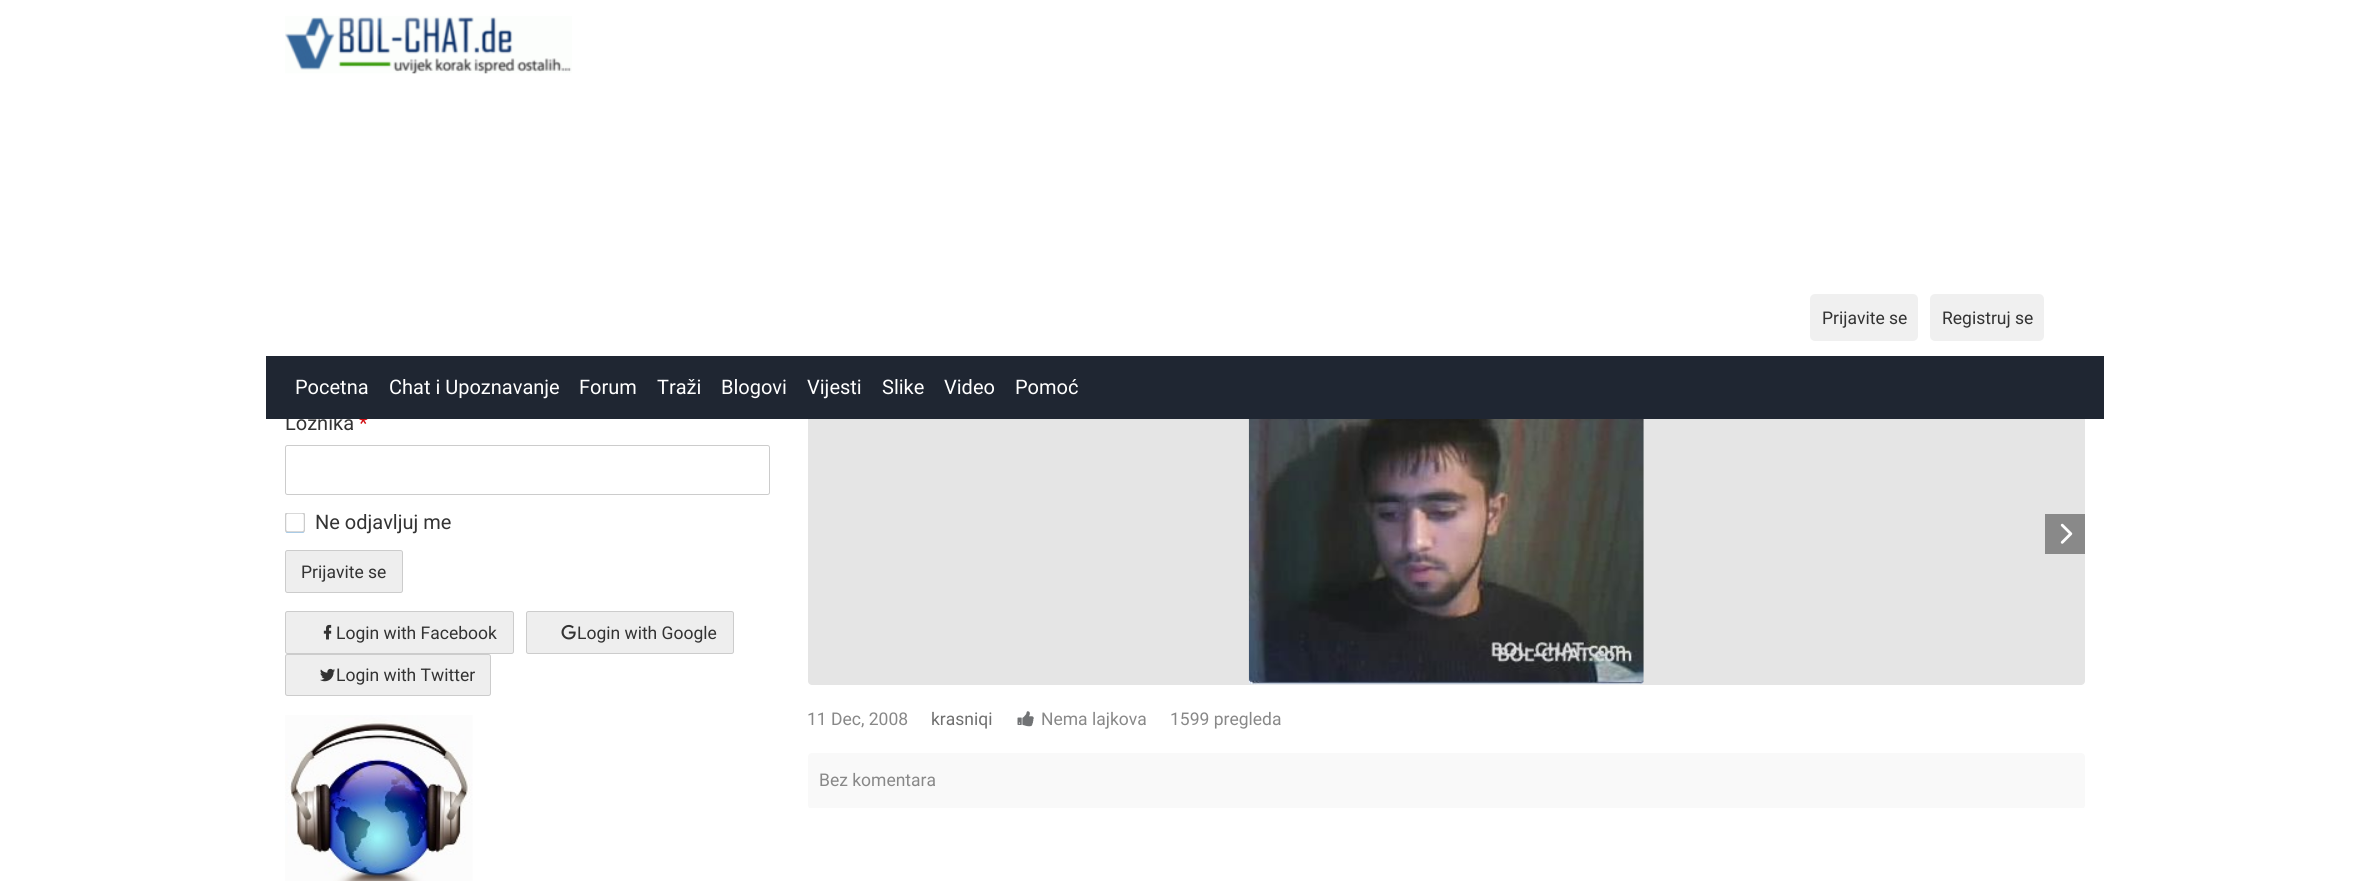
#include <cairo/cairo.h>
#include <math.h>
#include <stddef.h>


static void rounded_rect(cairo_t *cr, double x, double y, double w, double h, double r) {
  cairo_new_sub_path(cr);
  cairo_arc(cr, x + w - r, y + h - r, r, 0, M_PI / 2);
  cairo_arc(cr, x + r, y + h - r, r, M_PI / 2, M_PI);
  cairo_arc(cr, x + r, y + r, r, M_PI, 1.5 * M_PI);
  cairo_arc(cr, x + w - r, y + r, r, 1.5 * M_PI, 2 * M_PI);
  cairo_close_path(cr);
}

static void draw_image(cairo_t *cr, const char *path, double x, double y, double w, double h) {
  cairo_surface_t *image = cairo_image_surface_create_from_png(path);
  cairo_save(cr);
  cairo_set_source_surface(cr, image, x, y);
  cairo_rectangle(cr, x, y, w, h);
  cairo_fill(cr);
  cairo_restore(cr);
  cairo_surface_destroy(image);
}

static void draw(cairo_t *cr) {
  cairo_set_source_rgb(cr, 1, 1, 1);
  cairo_paint(cr);
  draw_image(cr, "images/1.png", 285, 16, 287, 58);
  cairo_set_source_rgb(cr, 240 / 255.0, 240 / 255.0, 240 / 255.0);
  rounded_rect(cr, 1810, 294, 108, 47, 5);
  cairo_fill(cr);
  rounded_rect(cr, 1930, 294, 114, 47, 5);
  cairo_fill(cr);
  rounded_rect(cr, 285.5, 445.5, 484, 49, 2);
  cairo_set_source_rgb(cr, 204 / 255.0, 204 / 255.0, 204 / 255.0);
  cairo_set_line_width(cr, 1);
  cairo_stroke(cr);
  draw_image(cr, "images/2.png", 285, 513, 20, 20);
  cairo_set_source_rgb(cr, 238 / 255.0, 238 / 255.0, 238 / 255.0);
  rounded_rect(cr, 285.5, 550.5, 117, 42, 2);
  cairo_fill_preserve(cr);
  cairo_set_source_rgb(cr, 204 / 255.0, 204 / 255.0, 204 / 255.0);
  cairo_stroke(cr);
  cairo_set_source_rgb(cr, 238 / 255.0, 238 / 255.0, 238 / 255.0);
  rounded_rect(cr, 285.5, 611.5, 228, 42, 2);
  cairo_fill_preserve(cr);
  cairo_set_source_rgb(cr, 204 / 255.0, 204 / 255.0, 204 / 255.0);
  cairo_stroke(cr);
  draw_image(cr, "images/3.png", 323, 624, 9, 16);
  cairo_set_source_rgb(cr, 238 / 255.0, 238 / 255.0, 238 / 255.0);
  rounded_rect(cr, 526.5, 611.5, 207, 42, 2);
  cairo_fill_preserve(cr);
  cairo_set_source_rgb(cr, 204 / 255.0, 204 / 255.0, 204 / 255.0);
  cairo_stroke(cr);
  draw_image(cr, "images/4.png", 561, 624, 15, 16);
  cairo_set_source_rgb(cr, 238 / 255.0, 238 / 255.0, 238 / 255.0);
  rounded_rect(cr, 285.5, 654.5, 205, 41, 2);
  cairo_fill_preserve(cr);
  cairo_set_source_rgb(cr, 204 / 255.0, 204 / 255.0, 204 / 255.0);
  cairo_stroke(cr);
  draw_image(cr, "images/5.png", 320, 668, 15, 14);
  draw_image(cr, "images/6.png", 285, 715, 188, 166);
  cairo_set_source_rgb(cr, 229 / 255.0, 229 / 255.0, 229 / 255.0);
  rounded_rect(cr, 808, 381, 1277, 304, 4);
  cairo_fill(cr);
  draw_image(cr, "images/7.png", 1248, 419, 396, 266);
  cairo_set_source_rgb(cr, 137 / 255.0, 137 / 255.0, 137 / 255.0);
  cairo_rectangle(cr, 2045, 514, 40, 40);
  cairo_fill(cr);
  draw_image(cr, "images/8.png", 2060, 523, 13, 21);
  draw_image(cr, "images/9.png", 1017, 711, 17, 16);
  cairo_set_source_rgb(cr, 249 / 255.0, 249 / 255.0, 249 / 255.0);
  rounded_rect(cr, 808, 753, 1277, 56, 4);
  cairo_fill(cr);
  cairo_set_source_rgb(cr, 1, 1, 1);
  cairo_rectangle(cr, 808, 808, 1277, 1);
  cairo_fill(cr);
  cairo_select_font_face(cr, "Roboto", CAIRO_FONT_SLANT_NORMAL, CAIRO_FONT_WEIGHT_NORMAL);
  cairo_set_font_size(cr, 17.5);
  cairo_set_source_rgb(cr, 51 / 255.0, 51 / 255.0, 51 / 255.0);
  cairo_move_to(cr, 1822, 324);
  cairo_show_text(cr, "Prijavite se");
  cairo_move_to(cr, 1942, 324);
  cairo_show_text(cr, "Registruj se");
  cairo_set_font_size(cr, 20);
  cairo_move_to(cr, 285, 430);
  cairo_show_text(cr, "Loznika");
  cairo_set_source_rgb(cr, 208 / 255.0, 14 / 255.0, 18 / 255.0);
  cairo_move_to(cr, 359, 430);
  cairo_show_text(cr, "*");
  cairo_set_source_rgb(cr, 1, 1, 1);
  cairo_rectangle(cr, 286, 381, 1799, 38);
  cairo_fill(cr);
  cairo_set_source_rgb(cr, 31 / 255.0, 38 / 255.0, 50 / 255.0);
  cairo_rectangle(cr, 266, 356, 1838, 63);
  cairo_fill(cr);
  cairo_set_source_rgb(cr, 1, 1, 1);
  cairo_move_to(cr, 1015, 394);
  cairo_show_text(cr, "Pomoć");
  cairo_move_to(cr, 944, 394);
  cairo_show_text(cr, "Video");
  cairo_move_to(cr, 882, 394);
  cairo_show_text(cr, "Slike");
  cairo_move_to(cr, 807, 394);
  cairo_show_text(cr, "Vijesti");
  cairo_move_to(cr, 721, 394);
  cairo_show_text(cr, "Blogovi");
  cairo_move_to(cr, 657, 394);
  cairo_show_text(cr, "Traži");
  cairo_move_to(cr, 579, 394);
  cairo_show_text(cr, "Forum");
  cairo_move_to(cr, 389, 394);
  cairo_show_text(cr, "Chat i Upoznavanje");
  cairo_move_to(cr, 295, 394);
  cairo_show_text(cr, "Pocetna");
  cairo_set_source_rgb(cr, 51 / 255.0, 51 / 255.0, 51 / 255.0);
  cairo_move_to(cr, 315, 529);
  cairo_show_text(cr, "Ne odjavljuj me");
  cairo_set_font_size(cr, 17.5);
  cairo_move_to(cr, 301, 578);
  cairo_show_text(cr, "Prijavite se");
  cairo_move_to(cr, 336, 639);
  cairo_show_text(cr, "Login with Facebook");
  cairo_move_to(cr, 577, 639);
  cairo_show_text(cr, "Login with Google");
  cairo_move_to(cr, 336, 681);
  cairo_show_text(cr, "Login with Twitter");
  cairo_set_source_rgb(cr, 136 / 255.0, 136 / 255.0, 136 / 255.0);
  cairo_move_to(cr, 807, 725);
  cairo_show_text(cr, "11 Dec, 2008");
  cairo_set_source_rgb(cr, 111 / 255.0, 111 / 255.0, 111 / 255.0);
  cairo_move_to(cr, 931, 725);
  cairo_show_text(cr, "krasniqi");
  cairo_set_source_rgb(cr, 136 / 255.0, 136 / 255.0, 136 / 255.0);
  cairo_move_to(cr, 1041, 725);
  cairo_show_text(cr, "Nema lajkova");
  cairo_move_to(cr, 1170, 725);
  cairo_show_text(cr, "1599 pregleda");
  cairo_move_to(cr, 819, 786);
  cairo_show_text(cr, "Bez komentara");
}

int main(void) {
  cairo_surface_t *surface = cairo_image_surface_create(CAIRO_FORMAT_RGB24, 2369, 881);
  cairo_t *cr = cairo_create(surface);
  cairo_font_options_t *options = cairo_font_options_create();
  cairo_font_options_set_hint_metrics(options, CAIRO_HINT_METRICS_OFF);
  cairo_font_options_set_hint_style(options, CAIRO_HINT_STYLE_NONE);
  cairo_set_font_options(cr, options);
  cairo_set_miter_limit(cr, 4);
  draw(cr);
  cairo_surface_write_to_png(surface, "out.png");
  cairo_font_options_destroy(options);
  cairo_destroy(cr);
  cairo_surface_destroy(surface);
  return 0;
}
